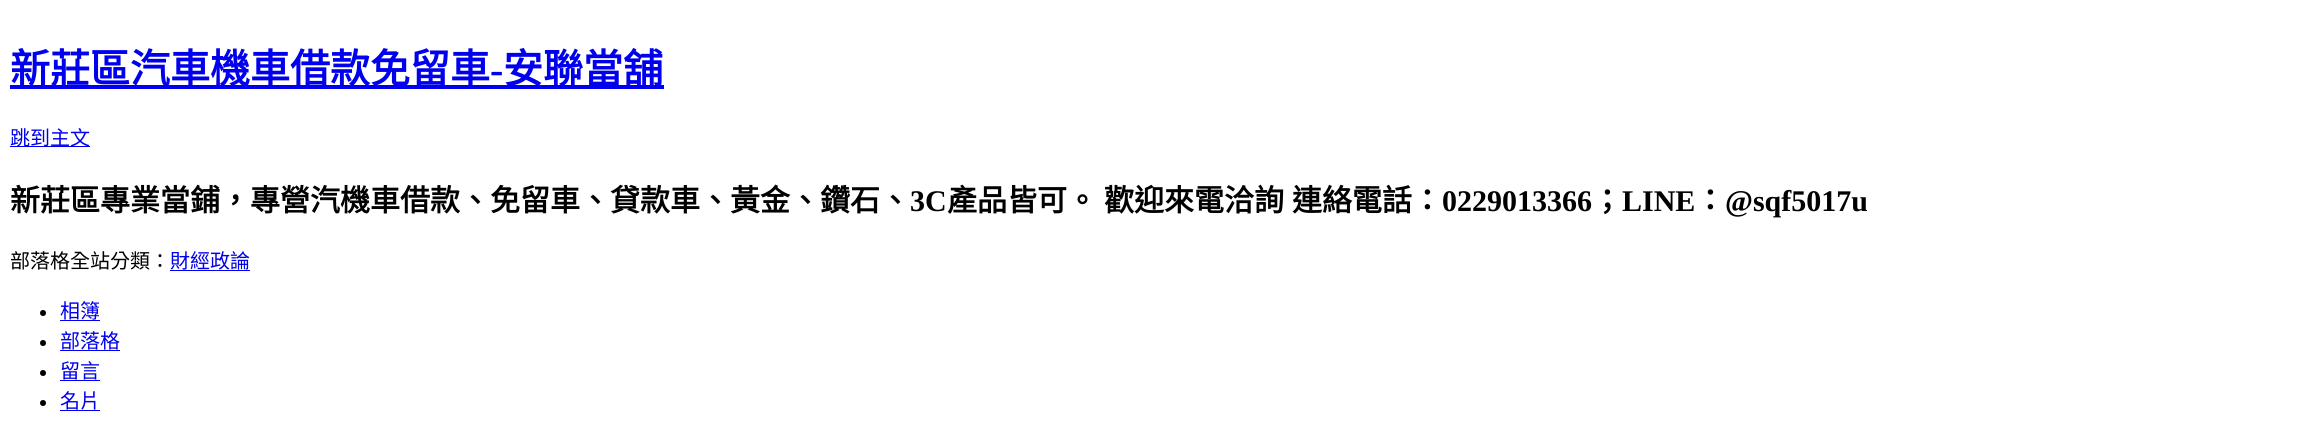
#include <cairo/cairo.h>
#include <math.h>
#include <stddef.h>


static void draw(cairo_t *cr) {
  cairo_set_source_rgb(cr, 1, 1, 1);
  cairo_paint(cr);
  cairo_set_source_rgb(cr, 0, 0, 238 / 255.0);
  cairo_rectangle(cr, 10, 85, 654, 4);
  cairo_fill(cr);
  cairo_rectangle(cr, 10, 146, 80, 1);
  cairo_fill(cr);
  cairo_rectangle(cr, 170, 270, 80, 1);
  cairo_fill(cr);
  cairo_set_source_rgb(cr, 0, 0, 0);
  cairo_arc(cr, 43, 313, 3, 0, 2 * M_PI);
  cairo_fill(cr);
  cairo_set_source_rgb(cr, 0, 0, 238 / 255.0);
  cairo_rectangle(cr, 60, 320, 40, 1);
  cairo_fill(cr);
  cairo_set_source_rgb(cr, 0, 0, 0);
  cairo_arc(cr, 43, 343, 3, 0, 2 * M_PI);
  cairo_fill(cr);
  cairo_set_source_rgb(cr, 0, 0, 238 / 255.0);
  cairo_rectangle(cr, 60, 350, 60, 1);
  cairo_fill(cr);
  cairo_set_source_rgb(cr, 0, 0, 0);
  cairo_arc(cr, 43, 373, 3, 0, 2 * M_PI);
  cairo_fill(cr);
  cairo_set_source_rgb(cr, 0, 0, 238 / 255.0);
  cairo_rectangle(cr, 60, 380, 40, 1);
  cairo_fill(cr);
  cairo_set_source_rgb(cr, 0, 0, 0);
  cairo_arc(cr, 43, 403, 3, 0, 2 * M_PI);
  cairo_fill(cr);
  cairo_set_source_rgb(cr, 0, 0, 238 / 255.0);
  cairo_rectangle(cr, 60, 410, 40, 1);
  cairo_fill(cr);
  cairo_select_font_face(cr, "Noto Sans CJK TC", CAIRO_FONT_SLANT_NORMAL, CAIRO_FONT_WEIGHT_BOLD);
  cairo_set_font_size(cr, 40);
  cairo_move_to(cr, 10, 83);
  cairo_show_text(cr, "新莊區汽車機車借款免留車");
  cairo_select_font_face(cr, "Liberation Serif", CAIRO_FONT_SLANT_NORMAL, CAIRO_FONT_WEIGHT_BOLD);
  cairo_move_to(cr, 490, 83);
  cairo_show_text(cr, "-");
  cairo_select_font_face(cr, "Noto Sans CJK TC", CAIRO_FONT_SLANT_NORMAL, CAIRO_FONT_WEIGHT_BOLD);
  cairo_move_to(cr, 503, 83);
  cairo_show_text(cr, "安聯當舖");
  cairo_select_font_face(cr, "Noto Sans CJK TC", CAIRO_FONT_SLANT_NORMAL, CAIRO_FONT_WEIGHT_NORMAL);
  cairo_set_font_size(cr, 20);
  cairo_move_to(cr, 10, 145);
  cairo_show_text(cr, "跳到主文");
  cairo_select_font_face(cr, "Noto Sans CJK TC", CAIRO_FONT_SLANT_NORMAL, CAIRO_FONT_WEIGHT_BOLD);
  cairo_set_font_size(cr, 30);
  cairo_set_source_rgb(cr, 0, 0, 0);
  cairo_move_to(cr, 10, 211);
  cairo_show_text(cr, "新莊區專業當鋪，專營汽機車借款、免留車、貸款車、黃金、鑽石、");
  cairo_select_font_face(cr, "Liberation Serif", CAIRO_FONT_SLANT_NORMAL, CAIRO_FONT_WEIGHT_BOLD);
  cairo_move_to(cr, 910, 211);
  cairo_show_text(cr, "3C");
  cairo_select_font_face(cr, "Noto Sans CJK TC", CAIRO_FONT_SLANT_NORMAL, CAIRO_FONT_WEIGHT_BOLD);
  cairo_move_to(cr, 947, 211);
  cairo_show_text(cr, "產品皆可。");
  cairo_move_to(cr, 1104, 211);
  cairo_show_text(cr, "歡迎來電洽詢");
  cairo_move_to(cr, 1292, 211);
  cairo_show_text(cr, "連絡電話：");
  cairo_select_font_face(cr, "Liberation Serif", CAIRO_FONT_SLANT_NORMAL, CAIRO_FONT_WEIGHT_BOLD);
  cairo_move_to(cr, 1442, 211);
  cairo_show_text(cr, "0229013366");
  cairo_select_font_face(cr, "Noto Sans CJK TC", CAIRO_FONT_SLANT_NORMAL, CAIRO_FONT_WEIGHT_BOLD);
  cairo_move_to(cr, 1592, 211);
  cairo_show_text(cr, "；");
  cairo_select_font_face(cr, "Liberation Serif", CAIRO_FONT_SLANT_NORMAL, CAIRO_FONT_WEIGHT_BOLD);
  cairo_move_to(cr, 1622, 211);
  cairo_show_text(cr, "LINE");
  cairo_select_font_face(cr, "Noto Sans CJK TC", CAIRO_FONT_SLANT_NORMAL, CAIRO_FONT_WEIGHT_BOLD);
  cairo_move_to(cr, 1695, 211);
  cairo_show_text(cr, "：");
  cairo_select_font_face(cr, "Liberation Serif", CAIRO_FONT_SLANT_NORMAL, CAIRO_FONT_WEIGHT_BOLD);
  cairo_move_to(cr, 1725, 211);
  cairo_show_text(cr, "@sqf5017u");
  cairo_select_font_face(cr, "Noto Sans CJK TC", CAIRO_FONT_SLANT_NORMAL, CAIRO_FONT_WEIGHT_NORMAL);
  cairo_set_font_size(cr, 20);
  cairo_move_to(cr, 10, 268);
  cairo_show_text(cr, "部落格全站分類：");
  cairo_set_source_rgb(cr, 0, 0, 238 / 255.0);
  cairo_move_to(cr, 170, 268);
  cairo_show_text(cr, "財經政論");
  cairo_move_to(cr, 60, 318);
  cairo_show_text(cr, "相簿");
  cairo_move_to(cr, 60, 348);
  cairo_show_text(cr, "部落格");
  cairo_move_to(cr, 60, 378);
  cairo_show_text(cr, "留言");
  cairo_move_to(cr, 60, 408);
  cairo_show_text(cr, "名片");
}

int main(void) {
  cairo_surface_t *surface = cairo_image_surface_create(CAIRO_FORMAT_RGB24, 2305, 440);
  cairo_t *cr = cairo_create(surface);
  cairo_font_options_t *options = cairo_font_options_create();
  cairo_font_options_set_hint_metrics(options, CAIRO_HINT_METRICS_OFF);
  cairo_font_options_set_hint_style(options, CAIRO_HINT_STYLE_NONE);
  cairo_set_font_options(cr, options);
  cairo_set_miter_limit(cr, 4);
  draw(cr);
  cairo_surface_write_to_png(surface, "out.png");
  cairo_font_options_destroy(options);
  cairo_destroy(cr);
  cairo_surface_destroy(surface);
  return 0;
}
